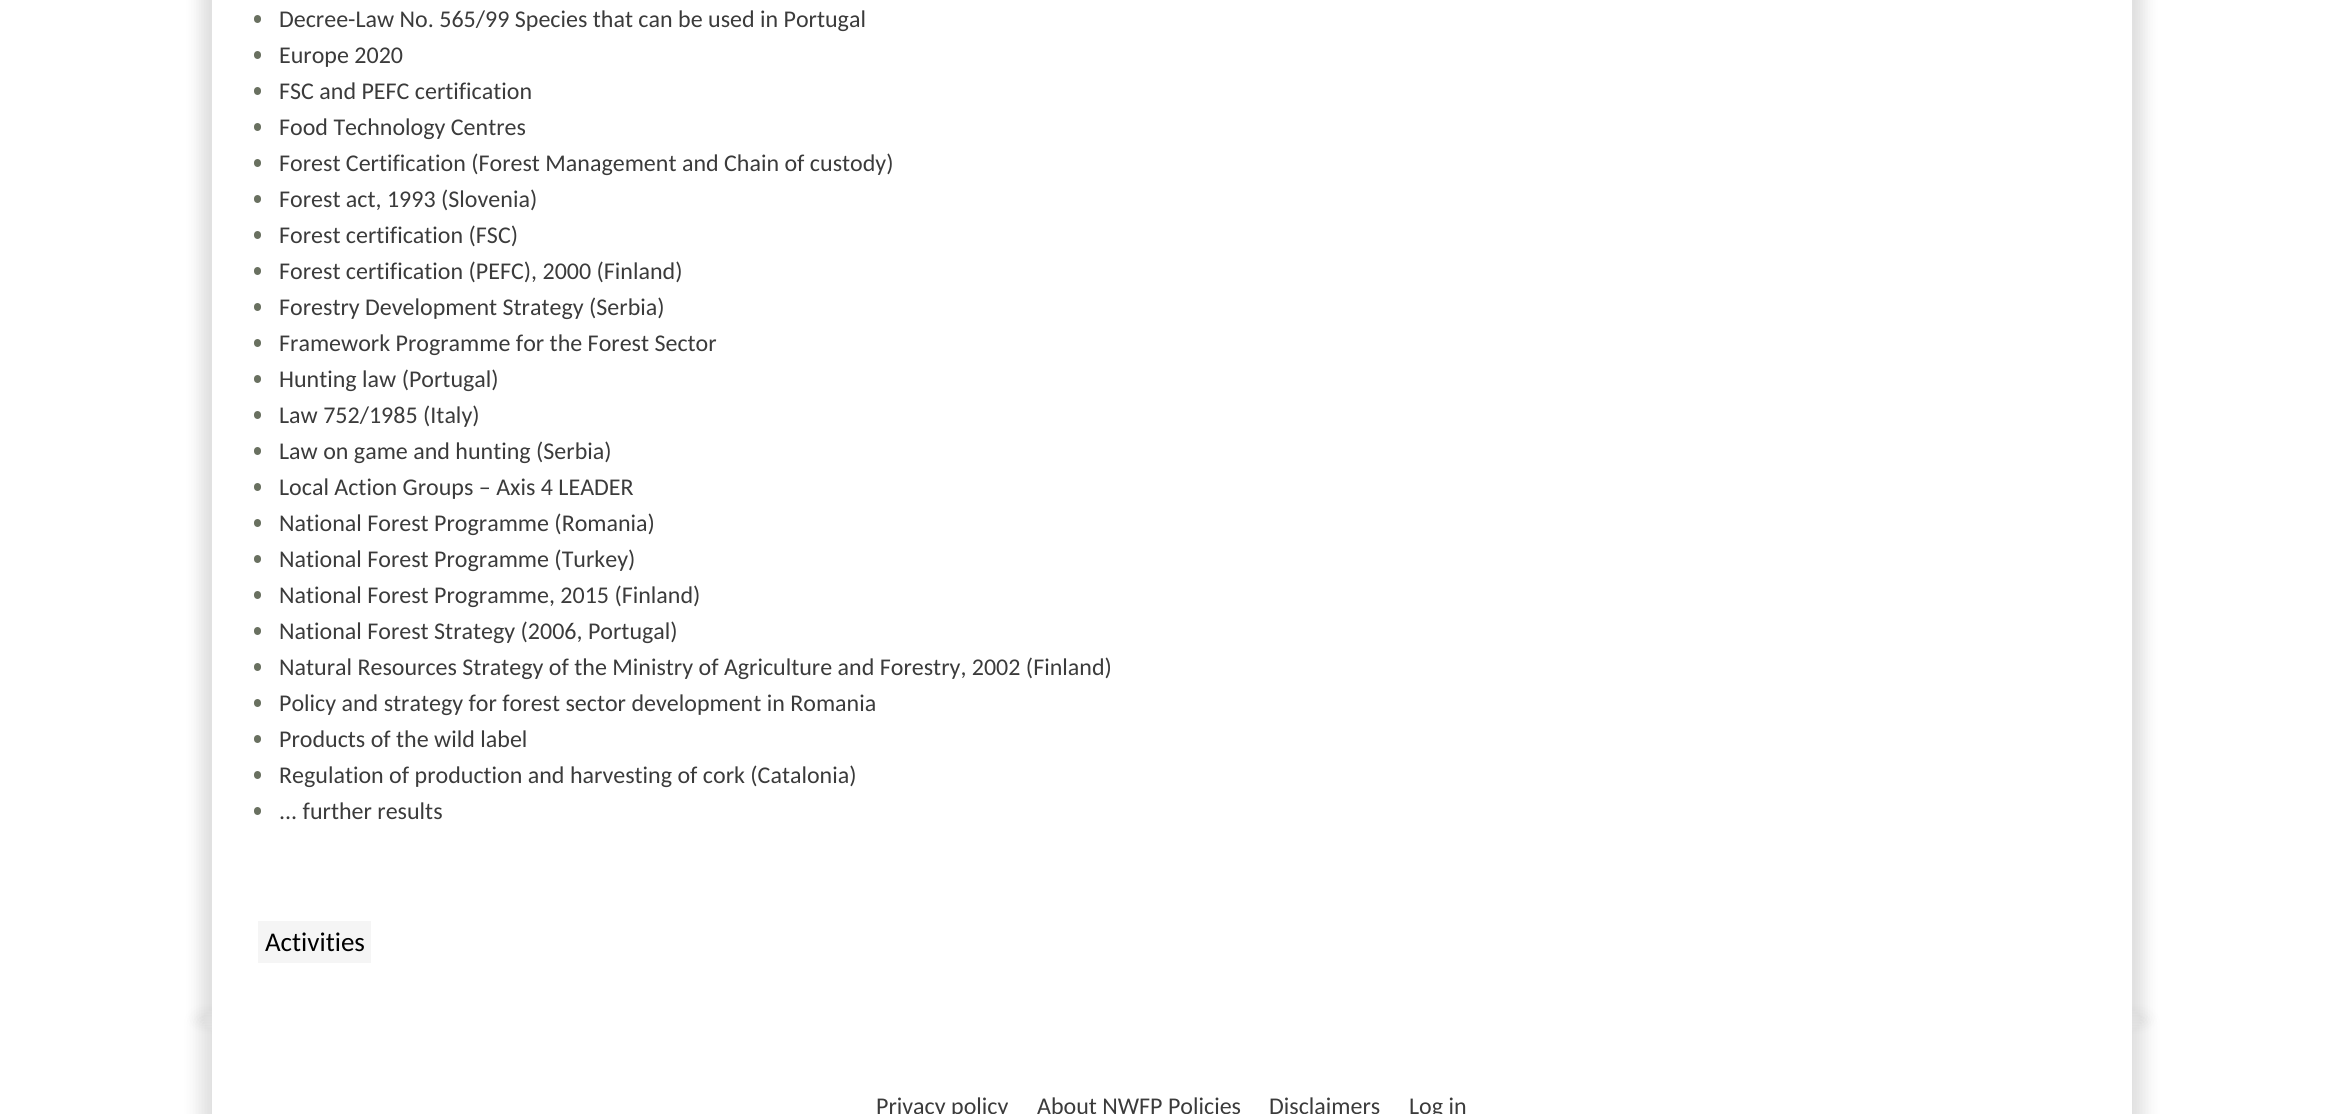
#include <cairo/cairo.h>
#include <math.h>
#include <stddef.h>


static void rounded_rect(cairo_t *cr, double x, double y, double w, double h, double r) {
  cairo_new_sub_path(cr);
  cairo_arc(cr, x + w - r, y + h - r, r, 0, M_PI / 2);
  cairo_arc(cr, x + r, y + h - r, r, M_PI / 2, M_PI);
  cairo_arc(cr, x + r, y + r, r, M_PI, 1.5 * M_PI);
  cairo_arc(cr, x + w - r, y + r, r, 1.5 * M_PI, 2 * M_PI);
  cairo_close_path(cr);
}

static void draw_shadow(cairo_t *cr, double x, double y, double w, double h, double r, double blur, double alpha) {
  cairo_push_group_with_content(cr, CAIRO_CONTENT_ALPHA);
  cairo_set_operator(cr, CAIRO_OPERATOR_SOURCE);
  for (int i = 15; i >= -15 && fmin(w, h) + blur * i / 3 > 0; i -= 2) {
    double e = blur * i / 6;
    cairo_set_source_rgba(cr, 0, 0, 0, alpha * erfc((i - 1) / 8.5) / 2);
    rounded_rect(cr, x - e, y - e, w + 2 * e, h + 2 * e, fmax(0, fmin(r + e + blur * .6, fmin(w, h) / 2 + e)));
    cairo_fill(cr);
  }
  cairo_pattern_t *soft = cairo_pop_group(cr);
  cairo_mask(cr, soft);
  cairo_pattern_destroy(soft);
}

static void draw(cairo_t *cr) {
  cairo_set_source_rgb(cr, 1, 1, 1);
  cairo_paint(cr);
  cairo_set_source_rgb(cr, 0, 0, 0);
  draw_shadow(cr, 200, 1020, 1908, 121, 0, 9, 0.13);
  draw_shadow(cr, 236, 1020, 1908, 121, 0, 9, 0.13);
  cairo_set_source_rgb(cr, 1, 1, 1);
  cairo_rectangle(cr, 212, 1040, 1920, 74);
  cairo_fill(cr);
  cairo_set_source_rgb(cr, 0, 0, 0);
  draw_shadow(cr, 200, -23, 1908, 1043, 0, 7.5, 0.13);
  draw_shadow(cr, 236, -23, 1908, 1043, 0, 7.5, 0.13);
  cairo_set_source_rgb(cr, 1, 1, 1);
  cairo_new_path(cr);
  cairo_move_to(cr, 212, 1026);
  cairo_line_to(cr, 212, 1040);
  cairo_line_to(cr, 2132, 1040);
  cairo_line_to(cr, 2132, -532);
  cairo_line_to(cr, 2132, 1026);
  cairo_close_path(cr);
  cairo_fill(cr);
  cairo_rectangle(cr, 212, 0, 1920, 1026);
  cairo_fill(cr);
  cairo_set_source_rgb(cr, 105 / 255.0, 112 / 255.0, 96 / 255.0);
  rounded_rect(cr, 254, 15, 7, 8, 3.5);
  cairo_fill(cr);
  rounded_rect(cr, 254, 51, 7, 8, 3.5);
  cairo_fill(cr);
  rounded_rect(cr, 254, 87, 7, 8, 3.5);
  cairo_fill(cr);
  rounded_rect(cr, 254, 123, 7, 8, 3.5);
  cairo_fill(cr);
  rounded_rect(cr, 254, 159, 7, 8, 3.5);
  cairo_fill(cr);
  rounded_rect(cr, 254, 195, 7, 8, 3.5);
  cairo_fill(cr);
  rounded_rect(cr, 254, 231, 7, 8, 3.5);
  cairo_fill(cr);
  rounded_rect(cr, 254, 267, 7, 8, 3.5);
  cairo_fill(cr);
  rounded_rect(cr, 254, 303, 7, 8, 3.5);
  cairo_fill(cr);
  rounded_rect(cr, 254, 339, 7, 8, 3.5);
  cairo_fill(cr);
  rounded_rect(cr, 254, 375, 7, 8, 3.5);
  cairo_fill(cr);
  rounded_rect(cr, 254, 411, 7, 8, 3.5);
  cairo_fill(cr);
  rounded_rect(cr, 254, 447, 7, 8, 3.5);
  cairo_fill(cr);
  rounded_rect(cr, 254, 483, 7, 8, 3.5);
  cairo_fill(cr);
  rounded_rect(cr, 254, 519, 7, 8, 3.5);
  cairo_fill(cr);
  rounded_rect(cr, 254, 555, 7, 8, 3.5);
  cairo_fill(cr);
  rounded_rect(cr, 254, 591, 7, 8, 3.5);
  cairo_fill(cr);
  rounded_rect(cr, 254, 627, 7, 8, 3.5);
  cairo_fill(cr);
  rounded_rect(cr, 254, 663, 7, 8, 3.5);
  cairo_fill(cr);
  rounded_rect(cr, 254, 699, 7, 8, 3.5);
  cairo_fill(cr);
  rounded_rect(cr, 254, 735, 7, 8, 3.5);
  cairo_fill(cr);
  rounded_rect(cr, 254, 771, 7, 8, 3.5);
  cairo_fill(cr);
  rounded_rect(cr, 254, 807, 7, 8, 3.5);
  cairo_fill(cr);
  cairo_set_source_rgb(cr, 245 / 255.0, 245 / 255.0, 245 / 255.0);
  cairo_rectangle(cr, 258, 921, 113, 42);
  cairo_fill(cr);
  cairo_select_font_face(cr, "Carlito", CAIRO_FONT_SLANT_NORMAL, CAIRO_FONT_WEIGHT_NORMAL);
  cairo_set_font_size(cr, 24);
  cairo_set_source_rgb(cr, 59 / 255.0, 59 / 255.0, 59 / 255.0);
  cairo_move_to(cr, 279, 27);
  cairo_show_text(cr, "Decree-Law No. 565/99 Species that can be used in Portugal");
  cairo_move_to(cr, 279, 63);
  cairo_show_text(cr, "Europe 2020");
  cairo_move_to(cr, 279, 99);
  cairo_show_text(cr, "FSC and PEFC certification");
  cairo_move_to(cr, 279, 135);
  cairo_show_text(cr, "Food Technology Centres");
  cairo_move_to(cr, 279, 171);
  cairo_show_text(cr, "Forest Certification (Forest Management and Chain of custody)");
  cairo_move_to(cr, 279, 207);
  cairo_show_text(cr, "Forest act, 1993 (Slovenia)");
  cairo_move_to(cr, 279, 243);
  cairo_show_text(cr, "Forest certification (FSC)");
  cairo_move_to(cr, 279, 279);
  cairo_show_text(cr, "Forest certification (PEFC), 2000 (Finland)");
  cairo_move_to(cr, 279, 315);
  cairo_show_text(cr, "Forestry Development Strategy (Serbia)");
  cairo_move_to(cr, 279, 351);
  cairo_show_text(cr, "Framework Programme for the Forest Sector");
  cairo_move_to(cr, 279, 387);
  cairo_show_text(cr, "Hunting law (Portugal)");
  cairo_move_to(cr, 279, 423);
  cairo_show_text(cr, "Law 752/1985 (Italy)");
  cairo_move_to(cr, 279, 459);
  cairo_show_text(cr, "Law on game and hunting (Serbia)");
  cairo_move_to(cr, 279, 495);
  cairo_show_text(cr, "Local Action Groups – Axis 4 LEADER");
  cairo_move_to(cr, 279, 531);
  cairo_show_text(cr, "National Forest Programme (Romania)");
  cairo_move_to(cr, 279, 567);
  cairo_show_text(cr, "National Forest Programme (Turkey)");
  cairo_move_to(cr, 279, 603);
  cairo_show_text(cr, "National Forest Programme, 2015 (Finland)");
  cairo_move_to(cr, 279, 639);
  cairo_show_text(cr, "National Forest Strategy (2006, Portugal)");
  cairo_move_to(cr, 279, 675);
  cairo_show_text(cr, "Natural Resources Strategy of the Ministry of Agriculture and Forestry, 2002 (Finland)");
  cairo_move_to(cr, 279, 711);
  cairo_show_text(cr, "Policy and strategy for forest sector development in Romania");
  cairo_move_to(cr, 279, 747);
  cairo_show_text(cr, "Products of the wild label");
  cairo_move_to(cr, 279, 783);
  cairo_show_text(cr, "Regulation of production and harvesting of cork (Catalonia)");
  cairo_move_to(cr, 279, 819);
  cairo_show_text(cr, "... further results");
  cairo_set_font_size(cr, 27);
  cairo_set_source_rgb(cr, 0, 0, 0);
  cairo_move_to(cr, 265, 951);
  cairo_show_text(cr, "Activities");
  cairo_set_font_size(cr, 24);
  cairo_set_source_rgb(cr, 59 / 255.0, 59 / 255.0, 59 / 255.0);
  cairo_move_to(cr, 876, 1114);
  cairo_show_text(cr, "Privacy policy");
  cairo_move_to(cr, 1037, 1114);
  cairo_show_text(cr, "About NWFP Policies");
  cairo_move_to(cr, 1269, 1114);
  cairo_show_text(cr, "Disclaimers");
  cairo_move_to(cr, 1409, 1114);
  cairo_show_text(cr, "Log in");
}

int main(void) {
  cairo_surface_t *surface = cairo_image_surface_create(CAIRO_FORMAT_RGB24, 2342, 1114);
  cairo_t *cr = cairo_create(surface);
  cairo_font_options_t *options = cairo_font_options_create();
  cairo_font_options_set_hint_metrics(options, CAIRO_HINT_METRICS_OFF);
  cairo_font_options_set_hint_style(options, CAIRO_HINT_STYLE_NONE);
  cairo_set_font_options(cr, options);
  cairo_set_miter_limit(cr, 4);
  draw(cr);
  cairo_surface_write_to_png(surface, "out.png");
  cairo_font_options_destroy(options);
  cairo_destroy(cr);
  cairo_surface_destroy(surface);
  return 0;
}
